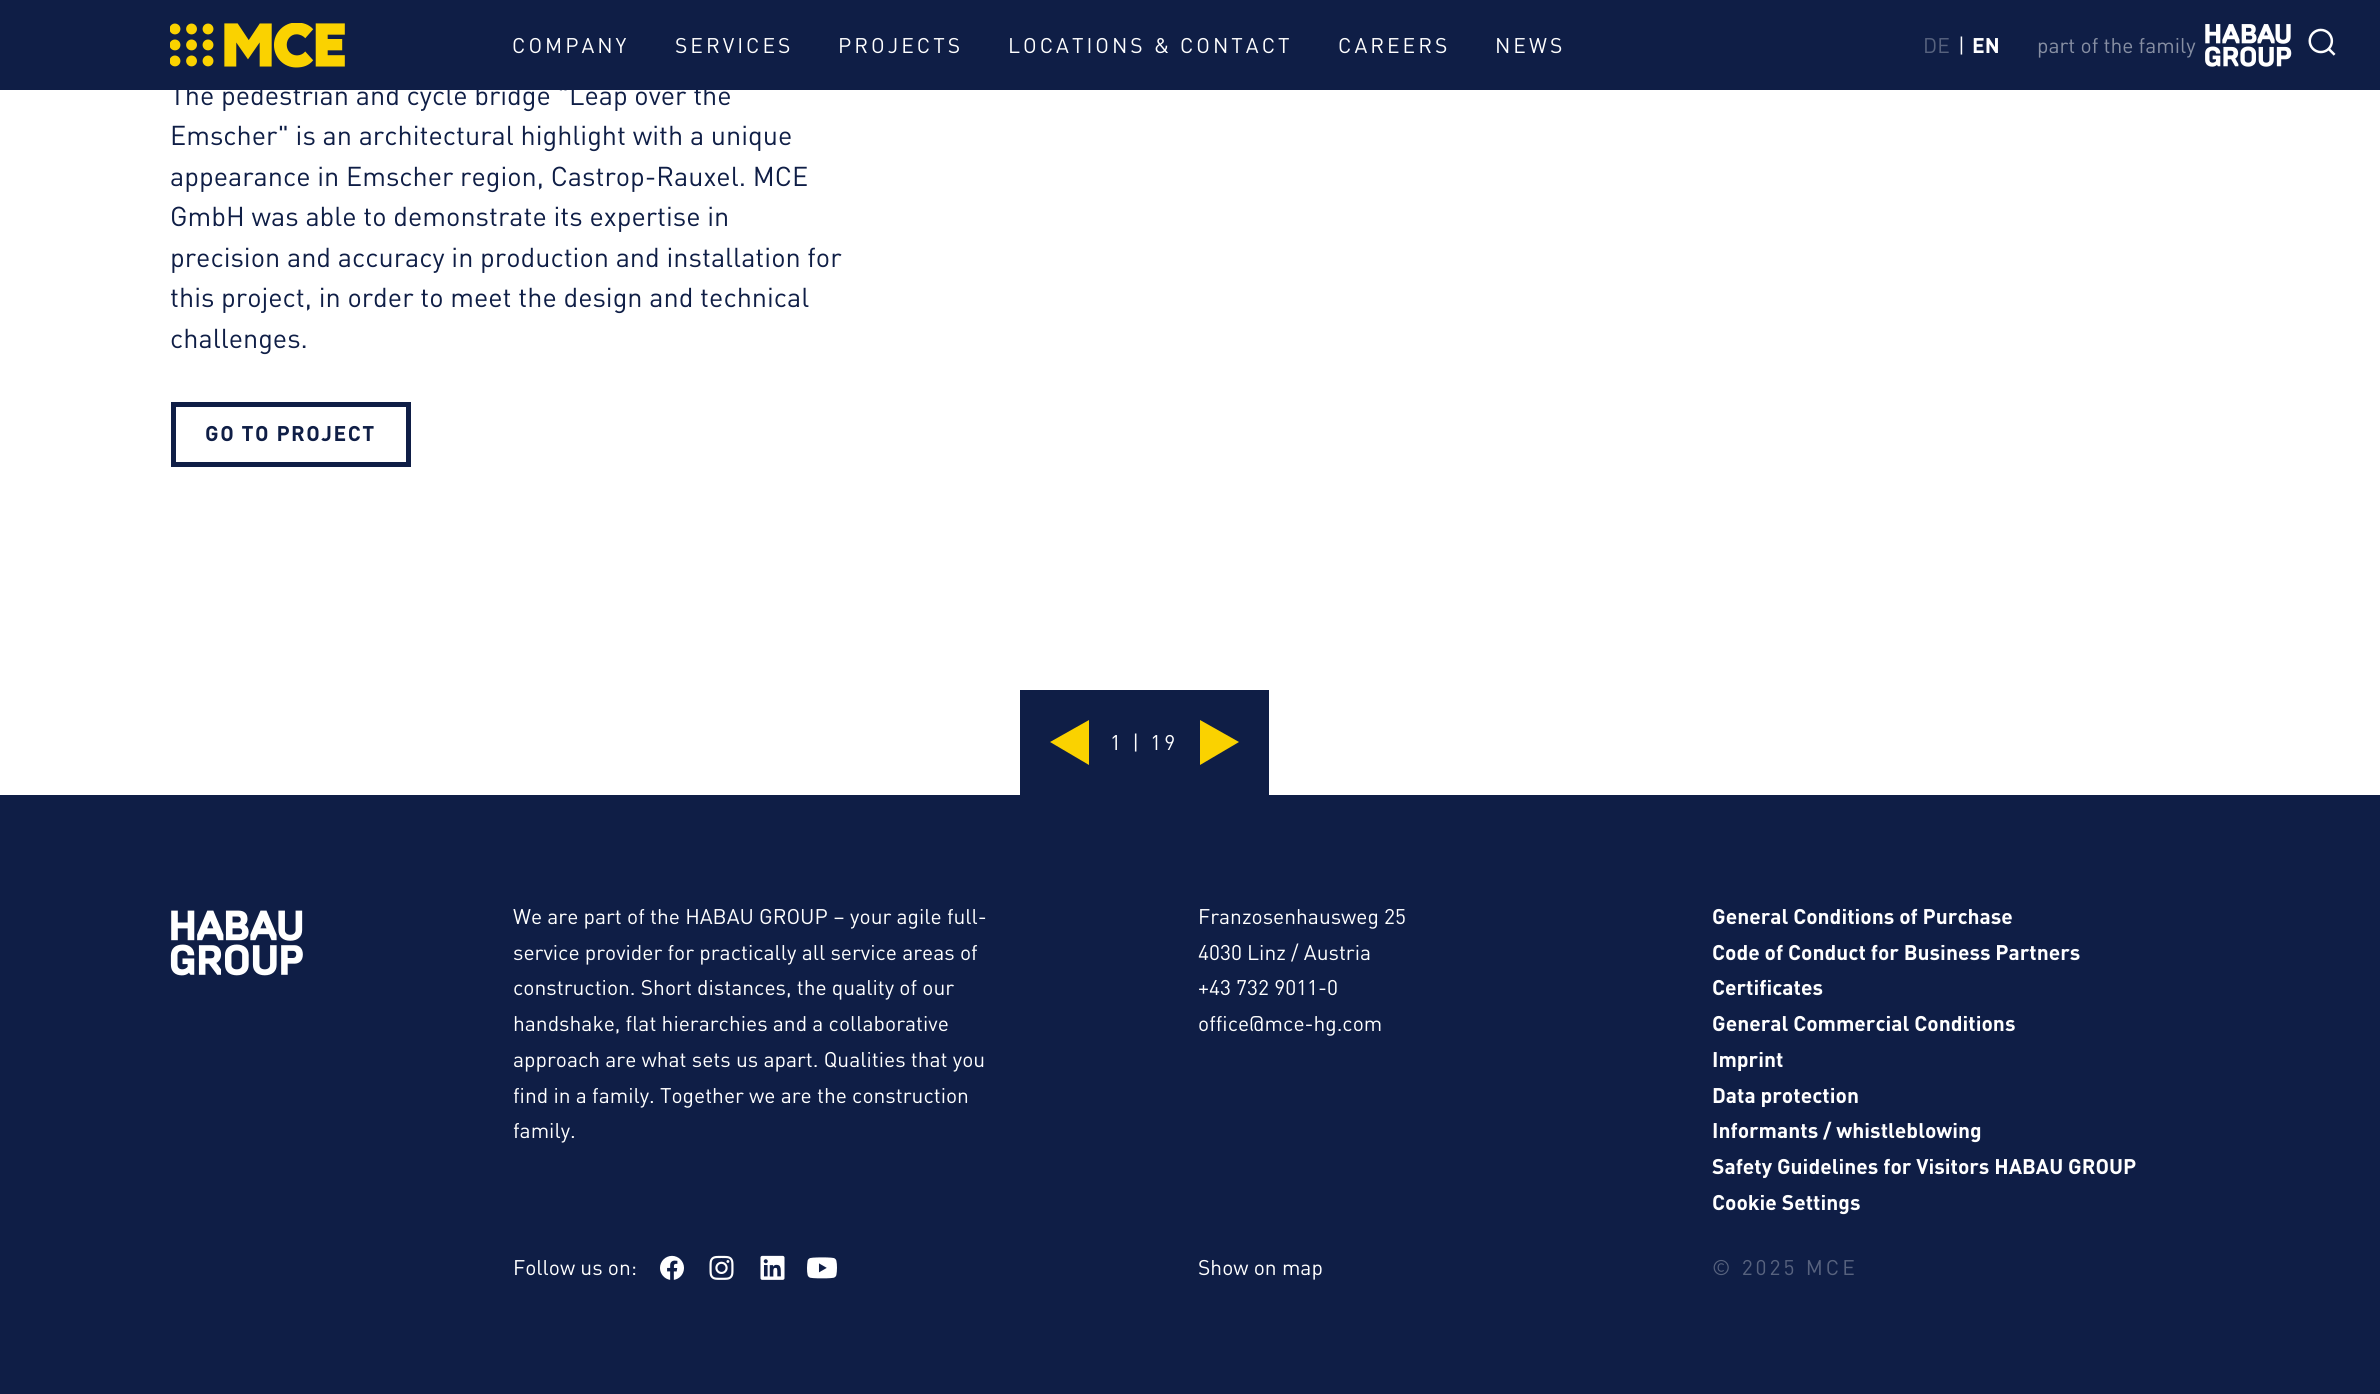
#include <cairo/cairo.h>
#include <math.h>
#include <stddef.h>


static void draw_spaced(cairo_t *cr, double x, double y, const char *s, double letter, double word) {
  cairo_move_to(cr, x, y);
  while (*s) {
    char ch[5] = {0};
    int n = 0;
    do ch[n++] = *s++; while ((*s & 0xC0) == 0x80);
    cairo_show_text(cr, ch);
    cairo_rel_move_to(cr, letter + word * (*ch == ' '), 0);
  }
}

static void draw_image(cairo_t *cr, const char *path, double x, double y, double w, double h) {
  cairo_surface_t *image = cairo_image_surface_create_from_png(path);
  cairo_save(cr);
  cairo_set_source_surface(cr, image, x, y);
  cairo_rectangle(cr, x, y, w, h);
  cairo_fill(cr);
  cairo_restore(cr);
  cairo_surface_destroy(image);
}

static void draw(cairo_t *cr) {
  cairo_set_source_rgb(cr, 1, 1, 1);
  cairo_paint(cr);
  cairo_set_source_rgb(cr, 15 / 255.0, 30 / 255.0, 70 / 255.0);
  cairo_rectangle(cr, 0, 0, 2380, 90);
  cairo_fill(cr);
  draw_image(cr, "images/1.png", 170, 23, 175, 45);
  draw_image(cr, "images/2.png", 2205, 24, 87, 43);
  draw_image(cr, "images/3.png", 2308, 28, 28, 28);
  cairo_rectangle(cr, 173.5, 404.5, 235, 60);
  cairo_set_line_width(cr, 5);
  cairo_stroke(cr);
  cairo_rectangle(cr, 1020, 690, 249, 105);
  cairo_fill(cr);
  cairo_set_source_rgb(cr, 250 / 255.0, 210 / 255.0, 0);
  cairo_new_path(cr);
  cairo_move_to(cr, 1089, 720);
  cairo_line_to(cr, 1050, 742);
  cairo_line_to(cr, 1089, 765);
  cairo_close_path(cr);
  cairo_fill(cr);
  cairo_new_path(cr);
  cairo_move_to(cr, 1200, 720);
  cairo_line_to(cr, 1239, 742);
  cairo_line_to(cr, 1200, 765);
  cairo_close_path(cr);
  cairo_fill(cr);
  cairo_set_source_rgb(cr, 15 / 255.0, 30 / 255.0, 70 / 255.0);
  cairo_rectangle(cr, 0, 795, 2380, 599);
  cairo_fill(cr);
  draw_image(cr, "images/4.png", 170, 910, 133, 66);
  draw_image(cr, "images/5.png", 660, 1255, 24, 25);
  draw_image(cr, "images/6.png", 709, 1255, 25, 25);
  draw_image(cr, "images/7.png", 760, 1255, 25, 25);
  draw_image(cr, "images/8.png", 807, 1257, 30, 22);
  cairo_select_font_face(cr, "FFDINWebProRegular", CAIRO_FONT_SLANT_NORMAL, CAIRO_FONT_WEIGHT_NORMAL);
  cairo_set_font_size(cr, 21);
  cairo_set_source_rgb(cr, 1, 1, 1);
  draw_spaced(cr, 512, 53, "COMPANY", 3, 0);
  draw_spaced(cr, 675, 53, "SERVICES", 3, 0);
  draw_spaced(cr, 838, 53, "PROJECTS", 3, 0);
  draw_spaced(cr, 1008, 53, "LOCATIONS & CONTACT", 3, 0);
  draw_spaced(cr, 1338, 53, "CAREERS", 3, 0);
  draw_spaced(cr, 1495, 53, "NEWS", 3, 0);
  cairo_set_source_rgb(cr, 87 / 255.0, 98 / 255.0, 126 / 255.0);
  cairo_move_to(cr, 1923, 53);
  cairo_show_text(cr, "DE");
  cairo_set_source_rgb(cr, 1, 1, 1);
  cairo_move_to(cr, 1958, 53);
  cairo_show_text(cr, "|");
  cairo_select_font_face(cr, "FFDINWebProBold", CAIRO_FONT_SLANT_NORMAL, CAIRO_FONT_WEIGHT_NORMAL);
  cairo_move_to(cr, 1972, 53);
  cairo_show_text(cr, "EN");
  cairo_select_font_face(cr, "FFDINWebProRegular", CAIRO_FONT_SLANT_NORMAL, CAIRO_FONT_WEIGHT_NORMAL);
  cairo_set_source_rgb(cr, 135 / 255.0, 143 / 255.0, 163 / 255.0);
  cairo_move_to(cr, 2037, 53);
  cairo_show_text(cr, "part of the family");
  cairo_set_font_size(cr, 27);
  cairo_set_source_rgb(cr, 15 / 255.0, 30 / 255.0, 70 / 255.0);
  cairo_move_to(cr, 170, 105);
  cairo_show_text(cr, "The pedestrian and cycle bridge \"Leap over the");
  cairo_move_to(cr, 170, 145);
  cairo_show_text(cr, "Emscher\" is an architectural highlight with a unique");
  cairo_move_to(cr, 170, 186);
  cairo_show_text(cr, "appearance in Emscher region, Castrop-Rauxel. MCE");
  cairo_move_to(cr, 170, 226);
  cairo_show_text(cr, "GmbH was able to demonstrate its expertise in");
  cairo_move_to(cr, 170, 267);
  cairo_show_text(cr, "precision and accuracy in production and installation for");
  cairo_move_to(cr, 170, 307);
  cairo_show_text(cr, "this project, in order to meet the design and technical");
  cairo_move_to(cr, 170, 348);
  cairo_show_text(cr, "challenges.");
  cairo_select_font_face(cr, "FFDINWebProBold", CAIRO_FONT_SLANT_NORMAL, CAIRO_FONT_WEIGHT_NORMAL);
  cairo_set_font_size(cr, 21);
  draw_spaced(cr, 205, 441, "GO TO PROJECT", 1.5, 0);
  cairo_select_font_face(cr, "FFDINWebProRegular", CAIRO_FONT_SLANT_NORMAL, CAIRO_FONT_WEIGHT_NORMAL);
  cairo_set_source_rgb(cr, 1, 1, 1);
  draw_spaced(cr, 1110, 750, "1 | 19", 3, 0);
  cairo_move_to(cr, 513, 924);
  cairo_show_text(cr, "We are part of the HABAU GROUP – your agile full-");
  cairo_move_to(cr, 513, 960);
  cairo_show_text(cr, "service provider for practically all service areas of");
  cairo_move_to(cr, 513, 995);
  cairo_show_text(cr, "construction. Short distances, the quality of our");
  cairo_move_to(cr, 513, 1031);
  cairo_show_text(cr, "handshake, flat hierarchies and a collaborative");
  cairo_move_to(cr, 513, 1067);
  cairo_show_text(cr, "approach are what sets us apart. Qualities that you");
  cairo_move_to(cr, 513, 1103);
  cairo_show_text(cr, "find in a family. Together we are the construction");
  cairo_move_to(cr, 513, 1138);
  cairo_show_text(cr, "family.");
  cairo_move_to(cr, 1198, 924);
  cairo_show_text(cr, "Franzosenhausweg 25");
  cairo_move_to(cr, 1198, 960);
  cairo_show_text(cr, "4030 Linz / Austria");
  cairo_move_to(cr, 1198, 995);
  cairo_show_text(cr, "+43 732 9011-0");
  cairo_move_to(cr, 1198, 1031);
  cairo_show_text(cr, "office@mce-hg.com");
  cairo_select_font_face(cr, "FFDINWebProBold", CAIRO_FONT_SLANT_NORMAL, CAIRO_FONT_WEIGHT_NORMAL);
  cairo_move_to(cr, 1712, 924);
  cairo_show_text(cr, "General Conditions of Purchase");
  cairo_move_to(cr, 1712, 960);
  cairo_show_text(cr, "Code of Conduct for Business Partners");
  cairo_move_to(cr, 1712, 995);
  cairo_show_text(cr, "Certificates");
  cairo_move_to(cr, 1712, 1031);
  cairo_show_text(cr, "General Commercial Conditions");
  cairo_move_to(cr, 1712, 1067);
  cairo_show_text(cr, "Imprint");
  cairo_move_to(cr, 1712, 1103);
  cairo_show_text(cr, "Data protection");
  cairo_move_to(cr, 1712, 1138);
  cairo_show_text(cr, "Informants / whistleblowing");
  cairo_move_to(cr, 1712, 1174);
  cairo_show_text(cr, "Safety Guidelines for Visitors HABAU GROUP");
  cairo_move_to(cr, 1712, 1210);
  cairo_show_text(cr, "Cookie Settings");
  cairo_select_font_face(cr, "FFDINWebProRegular", CAIRO_FONT_SLANT_NORMAL, CAIRO_FONT_WEIGHT_NORMAL);
  cairo_move_to(cr, 513, 1275);
  cairo_show_text(cr, "Follow us on:");
  cairo_move_to(cr, 1198, 1275);
  cairo_show_text(cr, "Show on map");
  cairo_set_source_rgb(cr, 87 / 255.0, 98 / 255.0, 126 / 255.0);
  draw_spaced(cr, 1712, 1275, "© 2025 MCE", 3, 0);
}

int main(void) {
  cairo_surface_t *surface = cairo_image_surface_create(CAIRO_FORMAT_RGB24, 2380, 1394);
  cairo_t *cr = cairo_create(surface);
  cairo_font_options_t *options = cairo_font_options_create();
  cairo_font_options_set_hint_metrics(options, CAIRO_HINT_METRICS_OFF);
  cairo_font_options_set_hint_style(options, CAIRO_HINT_STYLE_NONE);
  cairo_set_font_options(cr, options);
  cairo_set_miter_limit(cr, 4);
  draw(cr);
  cairo_surface_write_to_png(surface, "out.png");
  cairo_font_options_destroy(options);
  cairo_destroy(cr);
  cairo_surface_destroy(surface);
  return 0;
}
